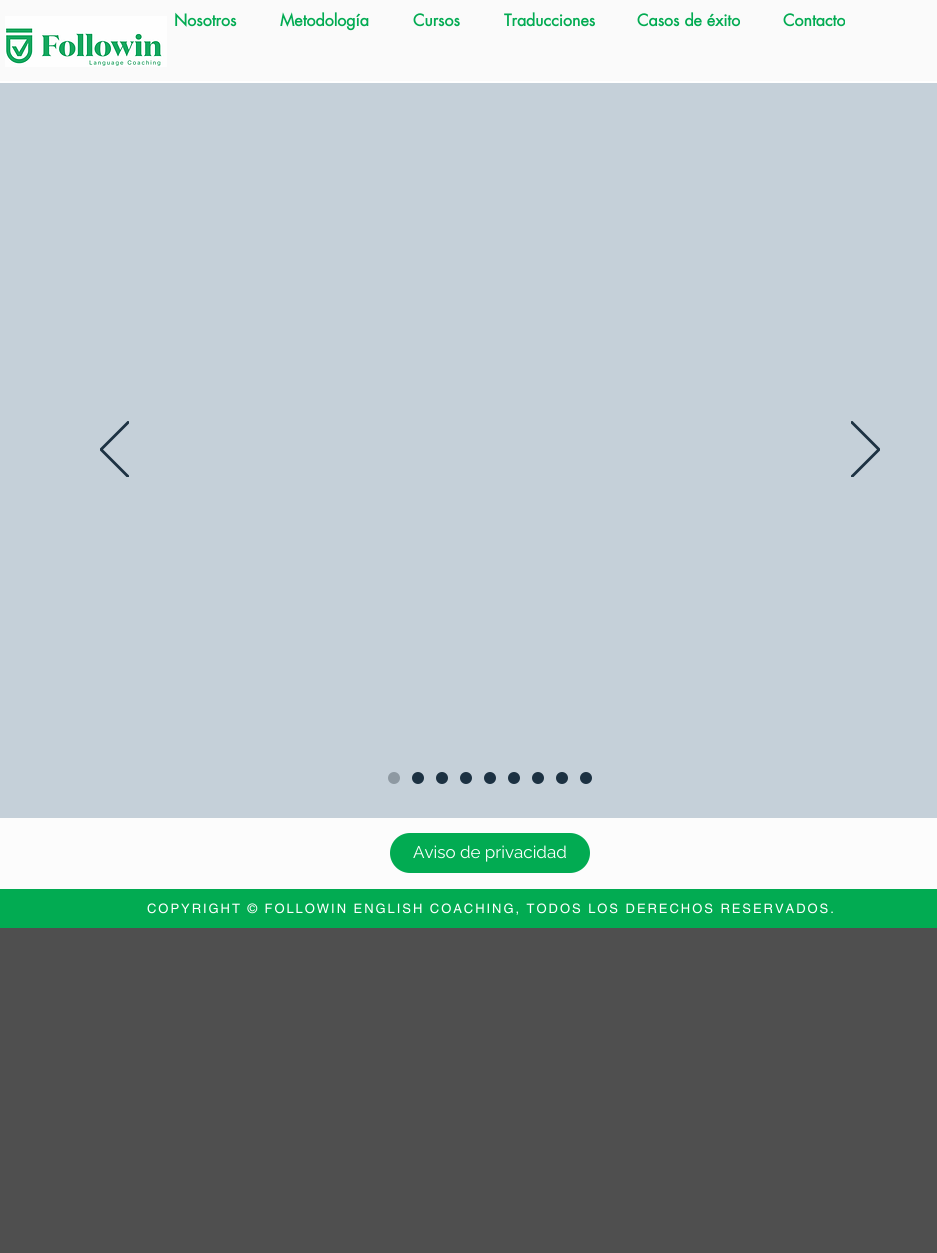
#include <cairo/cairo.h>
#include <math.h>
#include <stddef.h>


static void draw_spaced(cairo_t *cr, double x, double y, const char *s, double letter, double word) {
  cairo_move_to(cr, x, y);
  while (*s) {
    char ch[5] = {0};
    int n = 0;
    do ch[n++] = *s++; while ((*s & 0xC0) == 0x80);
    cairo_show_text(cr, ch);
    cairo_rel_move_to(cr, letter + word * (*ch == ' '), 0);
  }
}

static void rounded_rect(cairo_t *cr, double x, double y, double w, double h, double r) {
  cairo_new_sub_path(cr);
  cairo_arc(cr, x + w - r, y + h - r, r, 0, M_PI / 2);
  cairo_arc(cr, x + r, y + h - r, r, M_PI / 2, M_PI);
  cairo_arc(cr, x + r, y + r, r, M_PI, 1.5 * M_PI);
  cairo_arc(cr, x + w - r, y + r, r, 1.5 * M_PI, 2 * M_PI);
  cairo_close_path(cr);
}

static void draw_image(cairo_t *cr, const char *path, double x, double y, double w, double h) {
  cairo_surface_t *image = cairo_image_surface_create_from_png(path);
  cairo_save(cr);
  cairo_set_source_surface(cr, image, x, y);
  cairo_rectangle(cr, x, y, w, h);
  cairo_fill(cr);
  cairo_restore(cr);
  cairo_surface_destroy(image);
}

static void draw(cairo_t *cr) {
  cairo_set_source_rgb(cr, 79 / 255.0, 79 / 255.0, 79 / 255.0);
  cairo_paint(cr);
  cairo_set_source_rgb(cr, 250 / 255.0, 250 / 255.0, 250 / 255.0);
  cairo_rectangle(cr, 0, 0, 937, 81);
  cairo_fill(cr);
  draw_image(cr, "images/1.png", 5, 16, 162, 51);
  cairo_set_source_rgb(cr, 1, 1, 1);
  cairo_rectangle(cr, 0, 81, 937, 2);
  cairo_fill(cr);
  cairo_set_source_rgb(cr, 197 / 255.0, 208 / 255.0, 217 / 255.0);
  cairo_rectangle(cr, 0, 83, 937, 735);
  cairo_fill(cr);
  cairo_save(cr);
  cairo_rectangle(cr, 100, 421, 29, 56);
  cairo_clip(cr);
  cairo_new_path(cr);
  cairo_move_to(cr, 128, 477.5);
  cairo_line_to(cr, 100, 449.5);
  cairo_line_to(cr, 128, 421.5);
  cairo_line_to(cr, 129, 422.5);
  cairo_line_to(cr, 102, 449.5);
  cairo_line_to(cr, 129, 476.5);
  cairo_close_path(cr);
  cairo_set_source_rgb(cr, 28 / 255.0, 49 / 255.0, 66 / 255.0);
  cairo_set_line_width(cr, 1.4);
  cairo_stroke(cr);
  cairo_restore(cr);
  cairo_save(cr);
  cairo_rectangle(cr, 851, 421, 29, 56);
  cairo_clip(cr);
  cairo_new_path(cr);
  cairo_move_to(cr, 852, 477.5);
  cairo_line_to(cr, 880, 449.5);
  cairo_line_to(cr, 852, 421.5);
  cairo_line_to(cr, 851, 422.5);
  cairo_line_to(cr, 878, 449.5);
  cairo_line_to(cr, 851, 476.5);
  cairo_close_path(cr);
  cairo_set_source_rgb(cr, 28 / 255.0, 49 / 255.0, 66 / 255.0);
  cairo_set_line_width(cr, 1.4);
  cairo_stroke(cr);
  cairo_restore(cr);
  cairo_set_source_rgb(cr, 142 / 255.0, 153 / 255.0, 162 / 255.0);
  cairo_arc(cr, 394, 778, 6, 0, 2 * M_PI);
  cairo_fill(cr);
  cairo_set_source_rgb(cr, 28 / 255.0, 49 / 255.0, 66 / 255.0);
  cairo_arc(cr, 418, 778, 6, 0, 2 * M_PI);
  cairo_fill(cr);
  cairo_arc(cr, 442, 778, 6, 0, 2 * M_PI);
  cairo_fill(cr);
  cairo_arc(cr, 466, 778, 6, 0, 2 * M_PI);
  cairo_fill(cr);
  cairo_arc(cr, 490, 778, 6, 0, 2 * M_PI);
  cairo_fill(cr);
  cairo_arc(cr, 514, 778, 6, 0, 2 * M_PI);
  cairo_fill(cr);
  cairo_arc(cr, 538, 778, 6, 0, 2 * M_PI);
  cairo_fill(cr);
  cairo_arc(cr, 562, 778, 6, 0, 2 * M_PI);
  cairo_fill(cr);
  cairo_arc(cr, 586, 778, 6, 0, 2 * M_PI);
  cairo_fill(cr);
  cairo_set_source_rgb(cr, 252 / 255.0, 252 / 255.0, 252 / 255.0);
  cairo_rectangle(cr, 0, 818, 937, 71);
  cairo_fill(cr);
  cairo_set_source_rgb(cr, 2 / 255.0, 171 / 255.0, 82 / 255.0);
  rounded_rect(cr, 390, 833, 200, 40, 20);
  cairo_fill(cr);
  cairo_rectangle(cr, 0, 889, 937, 39);
  cairo_fill(cr);
  cairo_select_font_face(cr, "futura", CAIRO_FONT_SLANT_NORMAL, CAIRO_FONT_WEIGHT_BOLD);
  cairo_set_font_size(cr, 16);
  cairo_move_to(cr, 174, 26);
  cairo_show_text(cr, "Nosotros");
  cairo_move_to(cr, 280, 26);
  cairo_show_text(cr, "Metodología");
  cairo_move_to(cr, 413, 26);
  cairo_show_text(cr, "Cursos");
  cairo_move_to(cr, 504, 26);
  cairo_show_text(cr, "Traducciones");
  cairo_move_to(cr, 637, 26);
  cairo_show_text(cr, "Casos de éxito");
  cairo_move_to(cr, 783, 26);
  cairo_show_text(cr, "Contacto");
  cairo_select_font_face(cr, "Raleway", CAIRO_FONT_SLANT_NORMAL, CAIRO_FONT_WEIGHT_NORMAL);
  cairo_set_font_size(cr, 17);
  cairo_set_source_rgb(cr, 1, 1, 254 / 255.0);
  cairo_move_to(cr, 413, 858);
  cairo_show_text(cr, "Aviso de privacidad");
  cairo_select_font_face(cr, "helvetica", CAIRO_FONT_SLANT_NORMAL, CAIRO_FONT_WEIGHT_NORMAL);
  cairo_set_font_size(cr, 13);
  draw_spaced(cr, 147, 913, "COPYRIGHT © FOLLOWIN ENGLISH COACHING, TODOS LOS DERECHOS RESERVADOS.", 1.95, 0);
}

int main(void) {
  cairo_surface_t *surface = cairo_image_surface_create(CAIRO_FORMAT_RGB24, 937, 1253);
  cairo_t *cr = cairo_create(surface);
  cairo_font_options_t *options = cairo_font_options_create();
  cairo_font_options_set_hint_metrics(options, CAIRO_HINT_METRICS_OFF);
  cairo_font_options_set_hint_style(options, CAIRO_HINT_STYLE_NONE);
  cairo_set_font_options(cr, options);
  cairo_set_miter_limit(cr, 4);
  draw(cr);
  cairo_surface_write_to_png(surface, "out.png");
  cairo_font_options_destroy(options);
  cairo_destroy(cr);
  cairo_surface_destroy(surface);
  return 0;
}
